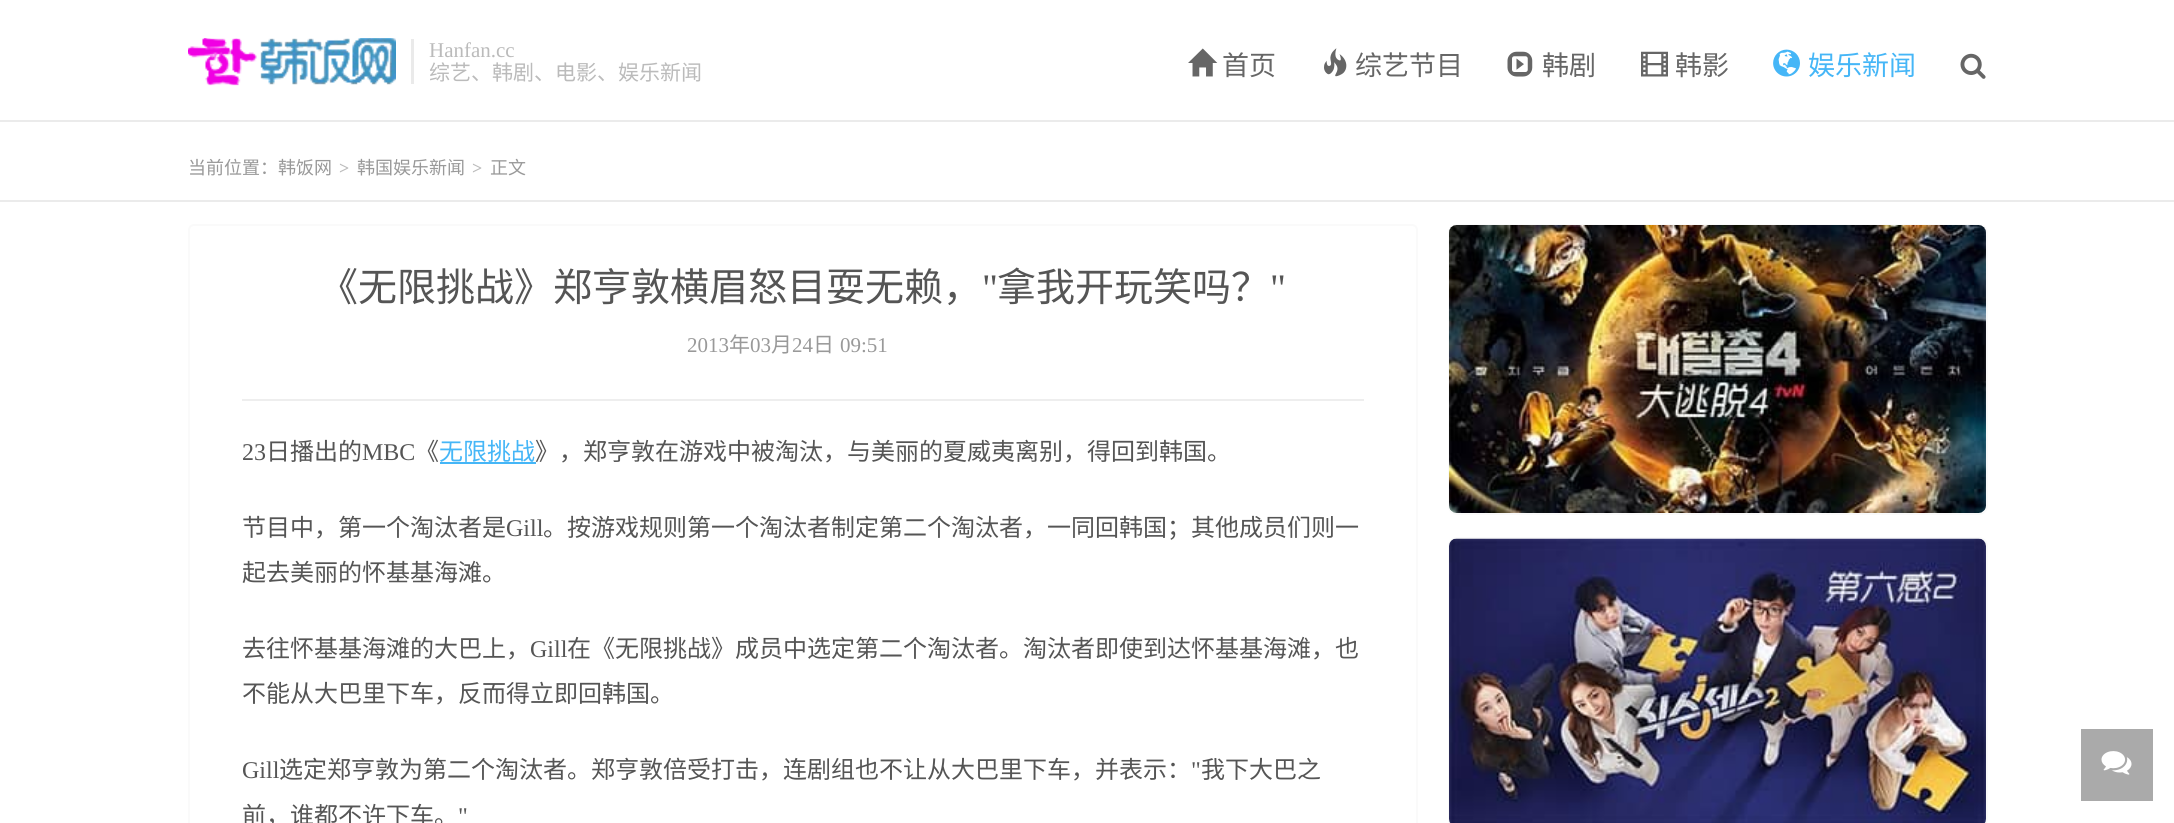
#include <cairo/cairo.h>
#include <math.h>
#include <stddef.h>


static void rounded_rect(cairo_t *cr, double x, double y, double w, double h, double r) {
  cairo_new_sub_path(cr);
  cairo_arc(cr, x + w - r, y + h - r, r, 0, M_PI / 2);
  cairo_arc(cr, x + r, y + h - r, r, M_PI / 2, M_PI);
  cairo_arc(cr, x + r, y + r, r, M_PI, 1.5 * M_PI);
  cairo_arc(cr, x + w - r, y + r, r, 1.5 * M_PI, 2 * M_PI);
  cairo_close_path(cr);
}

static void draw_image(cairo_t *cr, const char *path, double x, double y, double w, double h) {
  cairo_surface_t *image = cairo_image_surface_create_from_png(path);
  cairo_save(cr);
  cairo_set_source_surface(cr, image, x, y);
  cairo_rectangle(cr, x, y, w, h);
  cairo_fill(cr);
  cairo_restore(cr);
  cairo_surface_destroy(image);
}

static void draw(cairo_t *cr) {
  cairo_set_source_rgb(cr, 1, 1, 1);
  cairo_paint(cr);
  cairo_set_source_rgb(cr, 235 / 255.0, 235 / 255.0, 235 / 255.0);
  cairo_rectangle(cr, 0, 120, 2174, 2);
  cairo_fill(cr);
  draw_image(cr, "images/1.png", 188, 38, 208, 48);
  cairo_set_source_rgb(cr, 234 / 255.0, 234 / 255.0, 234 / 255.0);
  cairo_rectangle(cr, 411, 39, 3, 45);
  cairo_fill(cr);
  draw_image(cr, "images/2.png", 1188, 48, 30, 29);
  draw_image(cr, "images/3.png", 1324, 48, 23, 29);
  draw_image(cr, "images/4.png", 1507, 51, 26, 26);
  draw_image(cr, "images/5.png", 1641, 51, 27, 26);
  draw_image(cr, "images/6.png", 1773, 49, 27, 28);
  draw_image(cr, "images/7.png", 1960, 53, 26, 26);
  cairo_set_source_rgb(cr, 235 / 255.0, 235 / 255.0, 235 / 255.0);
  cairo_rectangle(cr, 0, 200, 2174, 2);
  cairo_fill(cr);
  rounded_rect(cr, 189, 225, 1228, 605, 5);
  cairo_set_source_rgb(cr, 250 / 255.0, 250 / 255.0, 250 / 255.0);
  cairo_stroke(cr);
  cairo_set_source_rgb(cr, 238 / 255.0, 238 / 255.0, 238 / 255.0);
  cairo_rectangle(cr, 242, 399, 1122, 2);
  cairo_fill(cr);
  cairo_set_source_rgb(cr, 69 / 255.0, 182 / 255.0, 247 / 255.0);
  cairo_rectangle(cr, 440, 462, 96, 2);
  cairo_fill(cr);
  rounded_rect(cr, 1449, 225, 538, 289, 8);
  cairo_set_source_rgb(cr, 250 / 255.0, 250 / 255.0, 250 / 255.0);
  cairo_stroke(cr);
  draw_image(cr, "images/8.png", 1449, 225, 537, 288);
  rounded_rect(cr, 1449, 538, 538, 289, 8);
  cairo_stroke(cr);
  draw_image(cr, "images/9.png", 1449, 538, 537, 285);
  cairo_set_source_rgb(cr, 170 / 255.0, 170 / 255.0, 170 / 255.0);
  cairo_rectangle(cr, 2081, 729, 72, 72);
  cairo_fill(cr);
  draw_image(cr, "images/10.png", 2101, 751, 31, 24);
  cairo_select_font_face(cr, "Liberation Serif", CAIRO_FONT_SLANT_NORMAL, CAIRO_FONT_WEIGHT_NORMAL);
  cairo_set_font_size(cr, 21);
  cairo_set_source_rgb(cr, 187 / 255.0, 187 / 255.0, 187 / 255.0);
  cairo_move_to(cr, 429, 57);
  cairo_show_text(cr, "Hanfan.cc");
  cairo_select_font_face(cr, "Noto Sans CJK SC", CAIRO_FONT_SLANT_NORMAL, CAIRO_FONT_WEIGHT_NORMAL);
  cairo_move_to(cr, 429, 80);
  cairo_show_text(cr, "综艺、韩剧、电影、娱乐新闻");
  cairo_set_font_size(cr, 27);
  cairo_set_source_rgb(cr, 102 / 255.0, 102 / 255.0, 102 / 255.0);
  cairo_move_to(cr, 1222, 75);
  cairo_show_text(cr, "首页");
  cairo_move_to(cr, 1355, 75);
  cairo_show_text(cr, "综艺节目");
  cairo_move_to(cr, 1542, 75);
  cairo_show_text(cr, "韩剧");
  cairo_move_to(cr, 1675, 75);
  cairo_show_text(cr, "韩影");
  cairo_set_source_rgb(cr, 69 / 255.0, 182 / 255.0, 247 / 255.0);
  cairo_move_to(cr, 1808, 75);
  cairo_show_text(cr, "娱乐新闻");
  cairo_set_font_size(cr, 18);
  cairo_set_source_rgb(cr, 153 / 255.0, 153 / 255.0, 153 / 255.0);
  cairo_move_to(cr, 188, 174);
  cairo_show_text(cr, "当前位置：韩饭网");
  cairo_select_font_face(cr, "Liberation Serif", CAIRO_FONT_SLANT_NORMAL, CAIRO_FONT_WEIGHT_BOLD);
  cairo_set_source_rgb(cr, 187 / 255.0, 187 / 255.0, 187 / 255.0);
  cairo_move_to(cr, 339, 174);
  cairo_show_text(cr, ">");
  cairo_select_font_face(cr, "Noto Sans CJK SC", CAIRO_FONT_SLANT_NORMAL, CAIRO_FONT_WEIGHT_NORMAL);
  cairo_set_source_rgb(cr, 153 / 255.0, 153 / 255.0, 153 / 255.0);
  cairo_move_to(cr, 357, 174);
  cairo_show_text(cr, "韩国娱乐新闻");
  cairo_select_font_face(cr, "Liberation Serif", CAIRO_FONT_SLANT_NORMAL, CAIRO_FONT_WEIGHT_BOLD);
  cairo_set_source_rgb(cr, 187 / 255.0, 187 / 255.0, 187 / 255.0);
  cairo_move_to(cr, 472, 174);
  cairo_show_text(cr, ">");
  cairo_select_font_face(cr, "Noto Sans CJK SC", CAIRO_FONT_SLANT_NORMAL, CAIRO_FONT_WEIGHT_NORMAL);
  cairo_set_source_rgb(cr, 153 / 255.0, 153 / 255.0, 153 / 255.0);
  cairo_move_to(cr, 490, 174);
  cairo_show_text(cr, "正文");
  cairo_set_font_size(cr, 39);
  cairo_set_source_rgb(cr, 85 / 255.0, 85 / 255.0, 85 / 255.0);
  cairo_move_to(cr, 319, 301);
  cairo_show_text(cr, "《无限挑战》郑亨敦横眉怒目耍无赖，");
  cairo_select_font_face(cr, "Liberation Serif", CAIRO_FONT_SLANT_NORMAL, CAIRO_FONT_WEIGHT_NORMAL);
  cairo_move_to(cr, 982, 301);
  cairo_show_text(cr, "\"");
  cairo_select_font_face(cr, "Noto Sans CJK SC", CAIRO_FONT_SLANT_NORMAL, CAIRO_FONT_WEIGHT_NORMAL);
  cairo_move_to(cr, 997, 301);
  cairo_show_text(cr, "拿我开玩笑吗？");
  cairo_select_font_face(cr, "Liberation Serif", CAIRO_FONT_SLANT_NORMAL, CAIRO_FONT_WEIGHT_NORMAL);
  cairo_move_to(cr, 1270, 301);
  cairo_show_text(cr, "\"");
  cairo_set_font_size(cr, 21);
  cairo_set_source_rgb(cr, 153 / 255.0, 153 / 255.0, 153 / 255.0);
  cairo_move_to(cr, 687, 352);
  cairo_show_text(cr, "2013");
  cairo_select_font_face(cr, "Noto Sans CJK SC", CAIRO_FONT_SLANT_NORMAL, CAIRO_FONT_WEIGHT_NORMAL);
  cairo_move_to(cr, 729, 352);
  cairo_show_text(cr, "年");
  cairo_select_font_face(cr, "Liberation Serif", CAIRO_FONT_SLANT_NORMAL, CAIRO_FONT_WEIGHT_NORMAL);
  cairo_move_to(cr, 750, 352);
  cairo_show_text(cr, "03");
  cairo_select_font_face(cr, "Noto Sans CJK SC", CAIRO_FONT_SLANT_NORMAL, CAIRO_FONT_WEIGHT_NORMAL);
  cairo_move_to(cr, 771, 352);
  cairo_show_text(cr, "月");
  cairo_select_font_face(cr, "Liberation Serif", CAIRO_FONT_SLANT_NORMAL, CAIRO_FONT_WEIGHT_NORMAL);
  cairo_move_to(cr, 792, 352);
  cairo_show_text(cr, "24");
  cairo_select_font_face(cr, "Noto Sans CJK SC", CAIRO_FONT_SLANT_NORMAL, CAIRO_FONT_WEIGHT_NORMAL);
  cairo_move_to(cr, 813, 352);
  cairo_show_text(cr, "日");
  cairo_select_font_face(cr, "Liberation Serif", CAIRO_FONT_SLANT_NORMAL, CAIRO_FONT_WEIGHT_NORMAL);
  cairo_move_to(cr, 840, 352);
  cairo_show_text(cr, "09:51");
  cairo_set_font_size(cr, 24);
  cairo_set_source_rgb(cr, 85 / 255.0, 85 / 255.0, 85 / 255.0);
  cairo_move_to(cr, 242, 460);
  cairo_show_text(cr, "23");
  cairo_select_font_face(cr, "Noto Sans CJK SC", CAIRO_FONT_SLANT_NORMAL, CAIRO_FONT_WEIGHT_NORMAL);
  cairo_move_to(cr, 266, 460);
  cairo_show_text(cr, "日播出的");
  cairo_select_font_face(cr, "Liberation Serif", CAIRO_FONT_SLANT_NORMAL, CAIRO_FONT_WEIGHT_NORMAL);
  cairo_move_to(cr, 362, 460);
  cairo_show_text(cr, "MBC");
  cairo_select_font_face(cr, "Noto Sans CJK SC", CAIRO_FONT_SLANT_NORMAL, CAIRO_FONT_WEIGHT_NORMAL);
  cairo_move_to(cr, 415, 460);
  cairo_show_text(cr, "《");
  cairo_set_source_rgb(cr, 69 / 255.0, 182 / 255.0, 247 / 255.0);
  cairo_move_to(cr, 439, 460);
  cairo_show_text(cr, "无限挑战");
  cairo_set_source_rgb(cr, 85 / 255.0, 85 / 255.0, 85 / 255.0);
  cairo_move_to(cr, 535, 460);
  cairo_show_text(cr, "》，郑亨敦在游戏中被淘汰，与美丽的夏威夷离别，得回到韩国。");
  cairo_move_to(cr, 242, 536);
  cairo_show_text(cr, "节目中，第一个淘汰者是");
  cairo_select_font_face(cr, "Liberation Serif", CAIRO_FONT_SLANT_NORMAL, CAIRO_FONT_WEIGHT_NORMAL);
  cairo_move_to(cr, 506, 536);
  cairo_show_text(cr, "Gill");
  cairo_select_font_face(cr, "Noto Sans CJK SC", CAIRO_FONT_SLANT_NORMAL, CAIRO_FONT_WEIGHT_NORMAL);
  cairo_move_to(cr, 543, 536);
  cairo_show_text(cr, "。按游戏规则第一个淘汰者制定第二个淘汰者，一同回韩国；其他成员们则一");
  cairo_move_to(cr, 242, 581);
  cairo_show_text(cr, "起去美丽的怀基基海滩。");
  cairo_move_to(cr, 242, 657);
  cairo_show_text(cr, "去往怀基基海滩的大巴上，");
  cairo_select_font_face(cr, "Liberation Serif", CAIRO_FONT_SLANT_NORMAL, CAIRO_FONT_WEIGHT_NORMAL);
  cairo_move_to(cr, 530, 657);
  cairo_show_text(cr, "Gill");
  cairo_select_font_face(cr, "Noto Sans CJK SC", CAIRO_FONT_SLANT_NORMAL, CAIRO_FONT_WEIGHT_NORMAL);
  cairo_move_to(cr, 567, 657);
  cairo_show_text(cr, "在《无限挑战》成员中选定第二个淘汰者。淘汰者即使到达怀基基海滩，也");
  cairo_move_to(cr, 242, 702);
  cairo_show_text(cr, "不能从大巴里下车，反而得立即回韩国。");
  cairo_select_font_face(cr, "Liberation Serif", CAIRO_FONT_SLANT_NORMAL, CAIRO_FONT_WEIGHT_NORMAL);
  cairo_move_to(cr, 242, 778);
  cairo_show_text(cr, "Gill");
  cairo_select_font_face(cr, "Noto Sans CJK SC", CAIRO_FONT_SLANT_NORMAL, CAIRO_FONT_WEIGHT_NORMAL);
  cairo_move_to(cr, 279, 778);
  cairo_show_text(cr, "选定郑亨敦为第二个淘汰者。郑亨敦倍受打击，连剧组也不让从大巴里下车，并表示：");
  cairo_select_font_face(cr, "Liberation Serif", CAIRO_FONT_SLANT_NORMAL, CAIRO_FONT_WEIGHT_NORMAL);
  cairo_move_to(cr, 1191, 778);
  cairo_show_text(cr, "\"");
  cairo_select_font_face(cr, "Noto Sans CJK SC", CAIRO_FONT_SLANT_NORMAL, CAIRO_FONT_WEIGHT_NORMAL);
  cairo_move_to(cr, 1201, 778);
  cairo_show_text(cr, "我下大巴之");
  cairo_move_to(cr, 242, 824);
  cairo_show_text(cr, "前，谁都不许下车。");
  cairo_select_font_face(cr, "Liberation Serif", CAIRO_FONT_SLANT_NORMAL, CAIRO_FONT_WEIGHT_NORMAL);
  cairo_move_to(cr, 458, 824);
  cairo_show_text(cr, "\"");
}

int main(void) {
  cairo_surface_t *surface = cairo_image_surface_create(CAIRO_FORMAT_RGB24, 2174, 823);
  cairo_t *cr = cairo_create(surface);
  cairo_font_options_t *options = cairo_font_options_create();
  cairo_font_options_set_hint_metrics(options, CAIRO_HINT_METRICS_OFF);
  cairo_font_options_set_hint_style(options, CAIRO_HINT_STYLE_NONE);
  cairo_set_font_options(cr, options);
  cairo_set_miter_limit(cr, 4);
  draw(cr);
  cairo_surface_write_to_png(surface, "out.png");
  cairo_font_options_destroy(options);
  cairo_destroy(cr);
  cairo_surface_destroy(surface);
  return 0;
}
